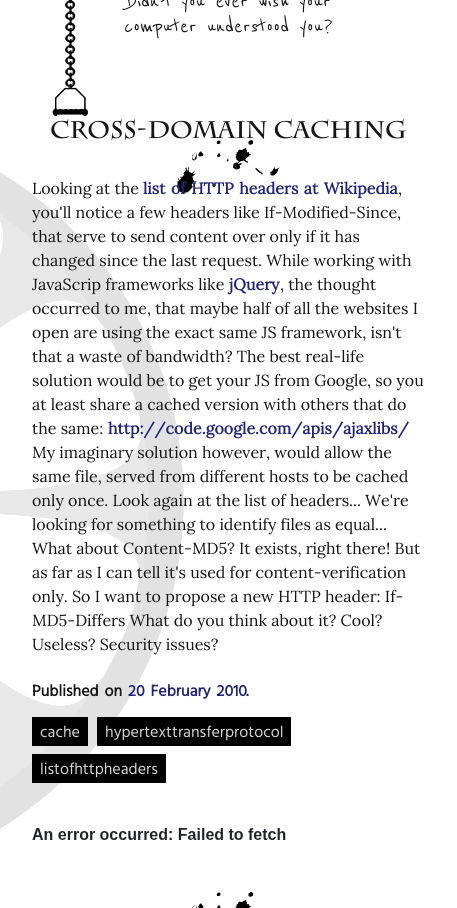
#include <cairo/cairo.h>
#include <math.h>
#include <stddef.h>


static void draw_spaced(cairo_t *cr, double x, double y, const char *s, double letter, double word) {
  cairo_move_to(cr, x, y);
  while (*s) {
    char ch[5] = {0};
    int n = 0;
    do ch[n++] = *s++; while ((*s & 0xC0) == 0x80);
    cairo_show_text(cr, ch);
    cairo_rel_move_to(cr, letter + word * (*ch == ' '), 0);
  }
}

static void draw_image(cairo_t *cr, const char *path, double x, double y, double w, double h) {
  cairo_surface_t *image = cairo_image_surface_create_from_png(path);
  cairo_save(cr);
  cairo_set_source_surface(cr, image, x, y);
  cairo_rectangle(cr, x, y, w, h);
  cairo_fill(cr);
  cairo_restore(cr);
  cairo_surface_destroy(image);
}

static void draw(cairo_t *cr) {
  cairo_set_source_rgb(cr, 1, 1, 1);
  cairo_paint(cr);
  draw_image(cr, "images/1.png", 52, 0, 36, 117);
  draw_image(cr, "images/5.png", 0, 172, 184, 657);
  draw_image(cr, "images/2.png", 177, 140, 103, 53);
  cairo_set_source_rgb(cr, 0, 0, 0);
  cairo_rectangle(cr, 32, 717, 56, 29);
  cairo_fill(cr);
  cairo_rectangle(cr, 97, 717, 194, 29);
  cairo_fill(cr);
  cairo_rectangle(cr, 32, 754, 134, 29);
  cairo_fill(cr);
  draw_image(cr, "images/3.png", 192, 892, 62, 16);
  draw_image(cr, "images/4.png", 32, 828, 254, 12);
  cairo_select_font_face(cr, "Reenie Beanie Medium", CAIRO_FONT_SLANT_NORMAL, CAIRO_FONT_WEIGHT_NORMAL);
  cairo_set_font_size(cr, 25);
  cairo_set_source_rgb(cr, 21 / 255.0, 21 / 255.0, 21 / 255.0);
  cairo_move_to(cr, 126, 8);
  cairo_show_text(cr, "Didn't you ever wish your");
  cairo_move_to(cr, 124, 33);
  cairo_show_text(cr, "computer understood you?");
  cairo_select_font_face(cr, "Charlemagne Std", CAIRO_FONT_SLANT_NORMAL, CAIRO_FONT_WEIGHT_BOLD);
  cairo_set_font_size(cr, 24);
  cairo_move_to(cr, 50, 138);
  cairo_show_text(cr, "Cross-domain caching");
  cairo_select_font_face(cr, "Lora", CAIRO_FONT_SLANT_NORMAL, CAIRO_FONT_WEIGHT_NORMAL);
  cairo_set_font_size(cr, 16);
  cairo_move_to(cr, 32, 194);
  cairo_show_text(cr, "Looking at the");
  cairo_select_font_face(cr, "Lora", CAIRO_FONT_SLANT_NORMAL, CAIRO_FONT_WEIGHT_BOLD);
  cairo_set_source_rgb(cr, 34 / 255.0, 34 / 255.0, 119 / 255.0);
  draw_spaced(cr, 143, 194, "list of HTTP headers at Wikipedia", 0, 1.25);
  cairo_select_font_face(cr, "Lora", CAIRO_FONT_SLANT_NORMAL, CAIRO_FONT_WEIGHT_NORMAL);
  cairo_set_source_rgb(cr, 21 / 255.0, 21 / 255.0, 21 / 255.0);
  cairo_move_to(cr, 398, 194);
  cairo_show_text(cr, ",");
  cairo_move_to(cr, 32, 218);
  cairo_show_text(cr, "you'll notice a few headers like If-Modified-Since,");
  cairo_move_to(cr, 32, 242);
  cairo_show_text(cr, "that serve to send content over only if it has");
  cairo_move_to(cr, 32, 266);
  cairo_show_text(cr, "changed since the last request. While working with");
  cairo_move_to(cr, 32, 290);
  cairo_show_text(cr, "JavaScrip frameworks like");
  cairo_select_font_face(cr, "Lora", CAIRO_FONT_SLANT_NORMAL, CAIRO_FONT_WEIGHT_BOLD);
  cairo_set_source_rgb(cr, 34 / 255.0, 34 / 255.0, 119 / 255.0);
  cairo_move_to(cr, 229, 290);
  cairo_show_text(cr, "jQuery");
  cairo_select_font_face(cr, "Lora", CAIRO_FONT_SLANT_NORMAL, CAIRO_FONT_WEIGHT_NORMAL);
  cairo_set_source_rgb(cr, 21 / 255.0, 21 / 255.0, 21 / 255.0);
  cairo_move_to(cr, 280, 290);
  cairo_show_text(cr, ", the thought");
  cairo_move_to(cr, 32, 314);
  cairo_show_text(cr, "occurred to me, that maybe half of all the websites I");
  cairo_move_to(cr, 32, 338);
  cairo_show_text(cr, "open are using the exact same JS framework, isn't");
  cairo_move_to(cr, 32, 362);
  cairo_show_text(cr, "that a waste of bandwidth? The best real-life");
  cairo_move_to(cr, 32, 386);
  cairo_show_text(cr, "solution would be to get your JS from Google, so you");
  cairo_move_to(cr, 32, 410);
  cairo_show_text(cr, "at least share a cached version with others that do");
  cairo_move_to(cr, 32, 434);
  cairo_show_text(cr, "the same:");
  cairo_select_font_face(cr, "Lora", CAIRO_FONT_SLANT_NORMAL, CAIRO_FONT_WEIGHT_BOLD);
  cairo_set_source_rgb(cr, 34 / 255.0, 34 / 255.0, 119 / 255.0);
  cairo_move_to(cr, 108, 434);
  cairo_show_text(cr, "http://code.google.com/apis/ajaxlibs/");
  cairo_select_font_face(cr, "Lora", CAIRO_FONT_SLANT_NORMAL, CAIRO_FONT_WEIGHT_NORMAL);
  cairo_set_source_rgb(cr, 21 / 255.0, 21 / 255.0, 21 / 255.0);
  cairo_move_to(cr, 32, 458);
  cairo_show_text(cr, "My imaginary solution however, would allow the");
  cairo_move_to(cr, 32, 482);
  cairo_show_text(cr, "same file, served from different hosts to be cached");
  cairo_move_to(cr, 32, 506);
  cairo_show_text(cr, "only once. Look again at the list of headers... We're");
  cairo_move_to(cr, 32, 530);
  cairo_show_text(cr, "looking for something to identify files as equal...");
  cairo_move_to(cr, 32, 554);
  cairo_show_text(cr, "What about Content-MD5? It exists, right there! But");
  cairo_move_to(cr, 32, 578);
  cairo_show_text(cr, "as far as I can tell it's used for content-verification");
  cairo_move_to(cr, 32, 602);
  cairo_show_text(cr, "only. So I want to propose a new HTTP header: If-");
  cairo_move_to(cr, 32, 626);
  cairo_show_text(cr, "MD5-Differs What do you think about it? Cool?");
  cairo_move_to(cr, 32, 650);
  cairo_show_text(cr, "Useless? Security issues?");
  cairo_select_font_face(cr, "Hind", CAIRO_FONT_SLANT_NORMAL, CAIRO_FONT_WEIGHT_BOLD);
  draw_spaced(cr, 32, 696, "Published on", 0, 2);
  cairo_set_source_rgb(cr, 34 / 255.0, 34 / 255.0, 119 / 255.0);
  draw_spaced(cr, 128, 696, "20 February 2010", 0, 2);
  cairo_set_source_rgb(cr, 21 / 255.0, 21 / 255.0, 21 / 255.0);
  cairo_move_to(cr, 246, 696);
  cairo_show_text(cr, ".");
  cairo_select_font_face(cr, "Hind", CAIRO_FONT_SLANT_NORMAL, CAIRO_FONT_WEIGHT_NORMAL);
  cairo_set_source_rgb(cr, 211 / 255.0, 211 / 255.0, 211 / 255.0);
  cairo_move_to(cr, 40, 737);
  cairo_show_text(cr, "cache");
  cairo_move_to(cr, 105, 737);
  cairo_show_text(cr, "hypertexttransferprotocol");
  cairo_move_to(cr, 40, 774);
  cairo_show_text(cr, "listofhttpheaders");
}

int main(void) {
  cairo_surface_t *surface = cairo_image_surface_create(CAIRO_FORMAT_RGB24, 457, 908);
  cairo_t *cr = cairo_create(surface);
  cairo_font_options_t *options = cairo_font_options_create();
  cairo_font_options_set_hint_metrics(options, CAIRO_HINT_METRICS_OFF);
  cairo_font_options_set_hint_style(options, CAIRO_HINT_STYLE_NONE);
  cairo_set_font_options(cr, options);
  cairo_set_miter_limit(cr, 4);
  draw(cr);
  cairo_surface_write_to_png(surface, "out.png");
  cairo_font_options_destroy(options);
  cairo_destroy(cr);
  cairo_surface_destroy(surface);
  return 0;
}
